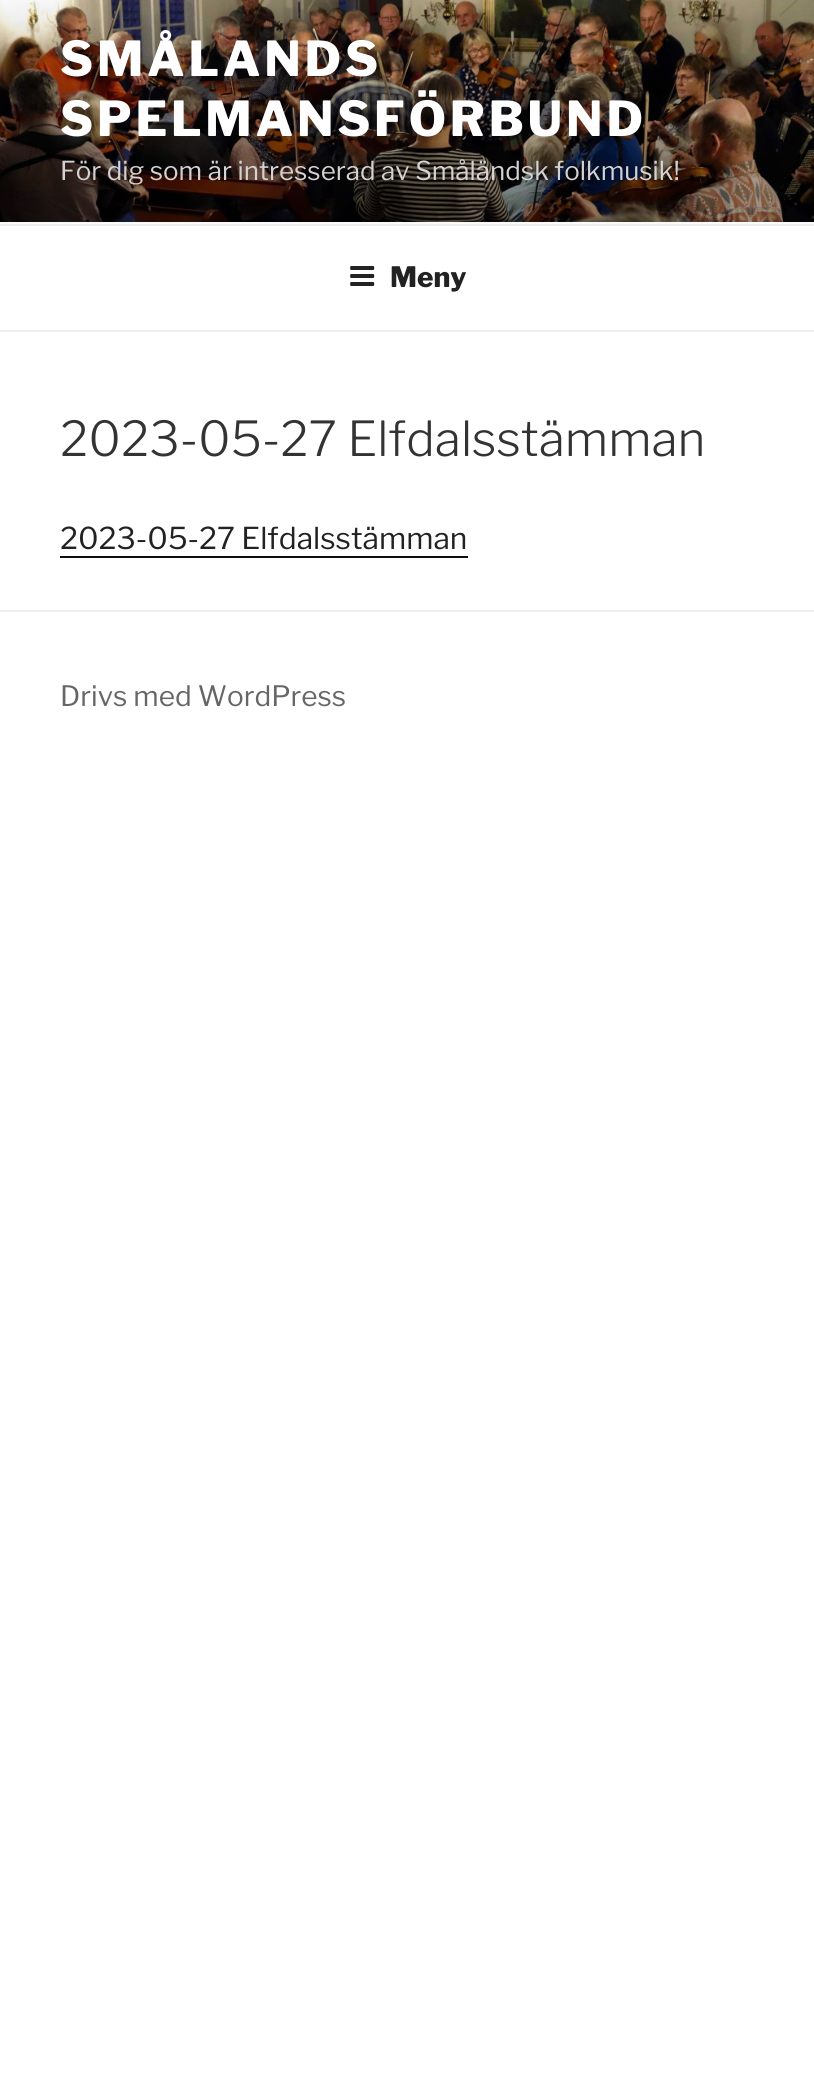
#include <cairo/cairo.h>
#include <math.h>
#include <stddef.h>


static void draw_spaced(cairo_t *cr, double x, double y, const char *s, double letter, double word) {
  cairo_move_to(cr, x, y);
  while (*s) {
    char ch[5] = {0};
    int n = 0;
    do ch[n++] = *s++; while ((*s & 0xC0) == 0x80);
    cairo_show_text(cr, ch);
    cairo_rel_move_to(cr, letter + word * (*ch == ' '), 0);
  }
}

static void draw_image(cairo_t *cr, const char *path, double x, double y, double w, double h) {
  cairo_surface_t *image = cairo_image_surface_create_from_png(path);
  cairo_save(cr);
  cairo_set_source_surface(cr, image, x, y);
  cairo_rectangle(cr, x, y, w, h);
  cairo_fill(cr);
  cairo_restore(cr);
  cairo_surface_destroy(image);
}

static void draw(cairo_t *cr) {
  cairo_set_source_rgb(cr, 1, 1, 1);
  cairo_paint(cr);
  cairo_set_source_rgb(cr, 250 / 255.0, 250 / 255.0, 250 / 255.0);
  cairo_rectangle(cr, 0, 222, 814, 2);
  cairo_fill(cr);
  draw_image(cr, "images/1.png", 0, 0, 814, 222);
  cairo_set_source_rgb(cr, 238 / 255.0, 238 / 255.0, 238 / 255.0);
  cairo_rectangle(cr, 0, 224, 814, 2);
  cairo_fill(cr);
  cairo_rectangle(cr, 0, 330, 814, 2);
  cairo_fill(cr);
  draw_image(cr, "images/2.png", 350, 266, 25, 20);
  cairo_set_source_rgb(cr, 15 / 255.0, 15 / 255.0, 15 / 255.0);
  cairo_rectangle(cr, 60, 556, 408, 2);
  cairo_fill(cr);
  cairo_set_source_rgb(cr, 238 / 255.0, 238 / 255.0, 238 / 255.0);
  cairo_rectangle(cr, 0, 610, 814, 2);
  cairo_fill(cr);
  cairo_select_font_face(cr, "Libre Franklin Thin", CAIRO_FONT_SLANT_NORMAL, CAIRO_FONT_WEIGHT_NORMAL);
  cairo_set_font_size(cr, 48);
  cairo_set_source_rgb(cr, 1, 1, 1);
  draw_spaced(cr, 60, 76, "SMÅLANDS", 3.8, 0);
  draw_spaced(cr, 60, 136, "SPELMANSFÖRBUND", 3.8, 0);
  cairo_select_font_face(cr, "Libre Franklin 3 Thin", CAIRO_FONT_SLANT_NORMAL, CAIRO_FONT_WEIGHT_NORMAL);
  cairo_set_font_size(cr, 26);
  cairo_set_source_rgb(cr, 212 / 255.0, 210 / 255.0, 210 / 255.0);
  cairo_move_to(cr, 60, 180);
  cairo_show_text(cr, "För dig som är intresserad av Småländsk folkmusik!");
  cairo_select_font_face(cr, "Libre Franklin Thin", CAIRO_FONT_SLANT_NORMAL, CAIRO_FONT_WEIGHT_NORMAL);
  cairo_set_font_size(cr, 28);
  cairo_set_source_rgb(cr, 34 / 255.0, 34 / 255.0, 34 / 255.0);
  cairo_move_to(cr, 390, 287);
  cairo_show_text(cr, "Meny");
  cairo_select_font_face(cr, "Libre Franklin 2 Thin", CAIRO_FONT_SLANT_NORMAL, CAIRO_FONT_WEIGHT_NORMAL);
  cairo_set_font_size(cr, 48);
  cairo_set_source_rgb(cr, 51 / 255.0, 51 / 255.0, 51 / 255.0);
  cairo_move_to(cr, 60, 456);
  cairo_show_text(cr, "2023-05-27 Elfdalsstämman");
  cairo_select_font_face(cr, "Libre Franklin 3 Thin", CAIRO_FONT_SLANT_NORMAL, CAIRO_FONT_WEIGHT_NORMAL);
  cairo_set_font_size(cr, 30);
  cairo_set_source_rgb(cr, 34 / 255.0, 34 / 255.0, 34 / 255.0);
  cairo_move_to(cr, 60, 549);
  cairo_show_text(cr, "2023-05-27 Elfdalsstämman");
  cairo_set_font_size(cr, 28);
  cairo_set_source_rgb(cr, 102 / 255.0, 102 / 255.0, 102 / 255.0);
  cairo_move_to(cr, 60, 706);
  cairo_show_text(cr, "Drivs med WordPress");
}

int main(void) {
  cairo_surface_t *surface = cairo_image_surface_create(CAIRO_FORMAT_RGB24, 814, 2073);
  cairo_t *cr = cairo_create(surface);
  cairo_font_options_t *options = cairo_font_options_create();
  cairo_font_options_set_hint_metrics(options, CAIRO_HINT_METRICS_OFF);
  cairo_font_options_set_hint_style(options, CAIRO_HINT_STYLE_NONE);
  cairo_set_font_options(cr, options);
  cairo_set_miter_limit(cr, 4);
  draw(cr);
  cairo_surface_write_to_png(surface, "out.png");
  cairo_font_options_destroy(options);
  cairo_destroy(cr);
  cairo_surface_destroy(surface);
  return 0;
}
